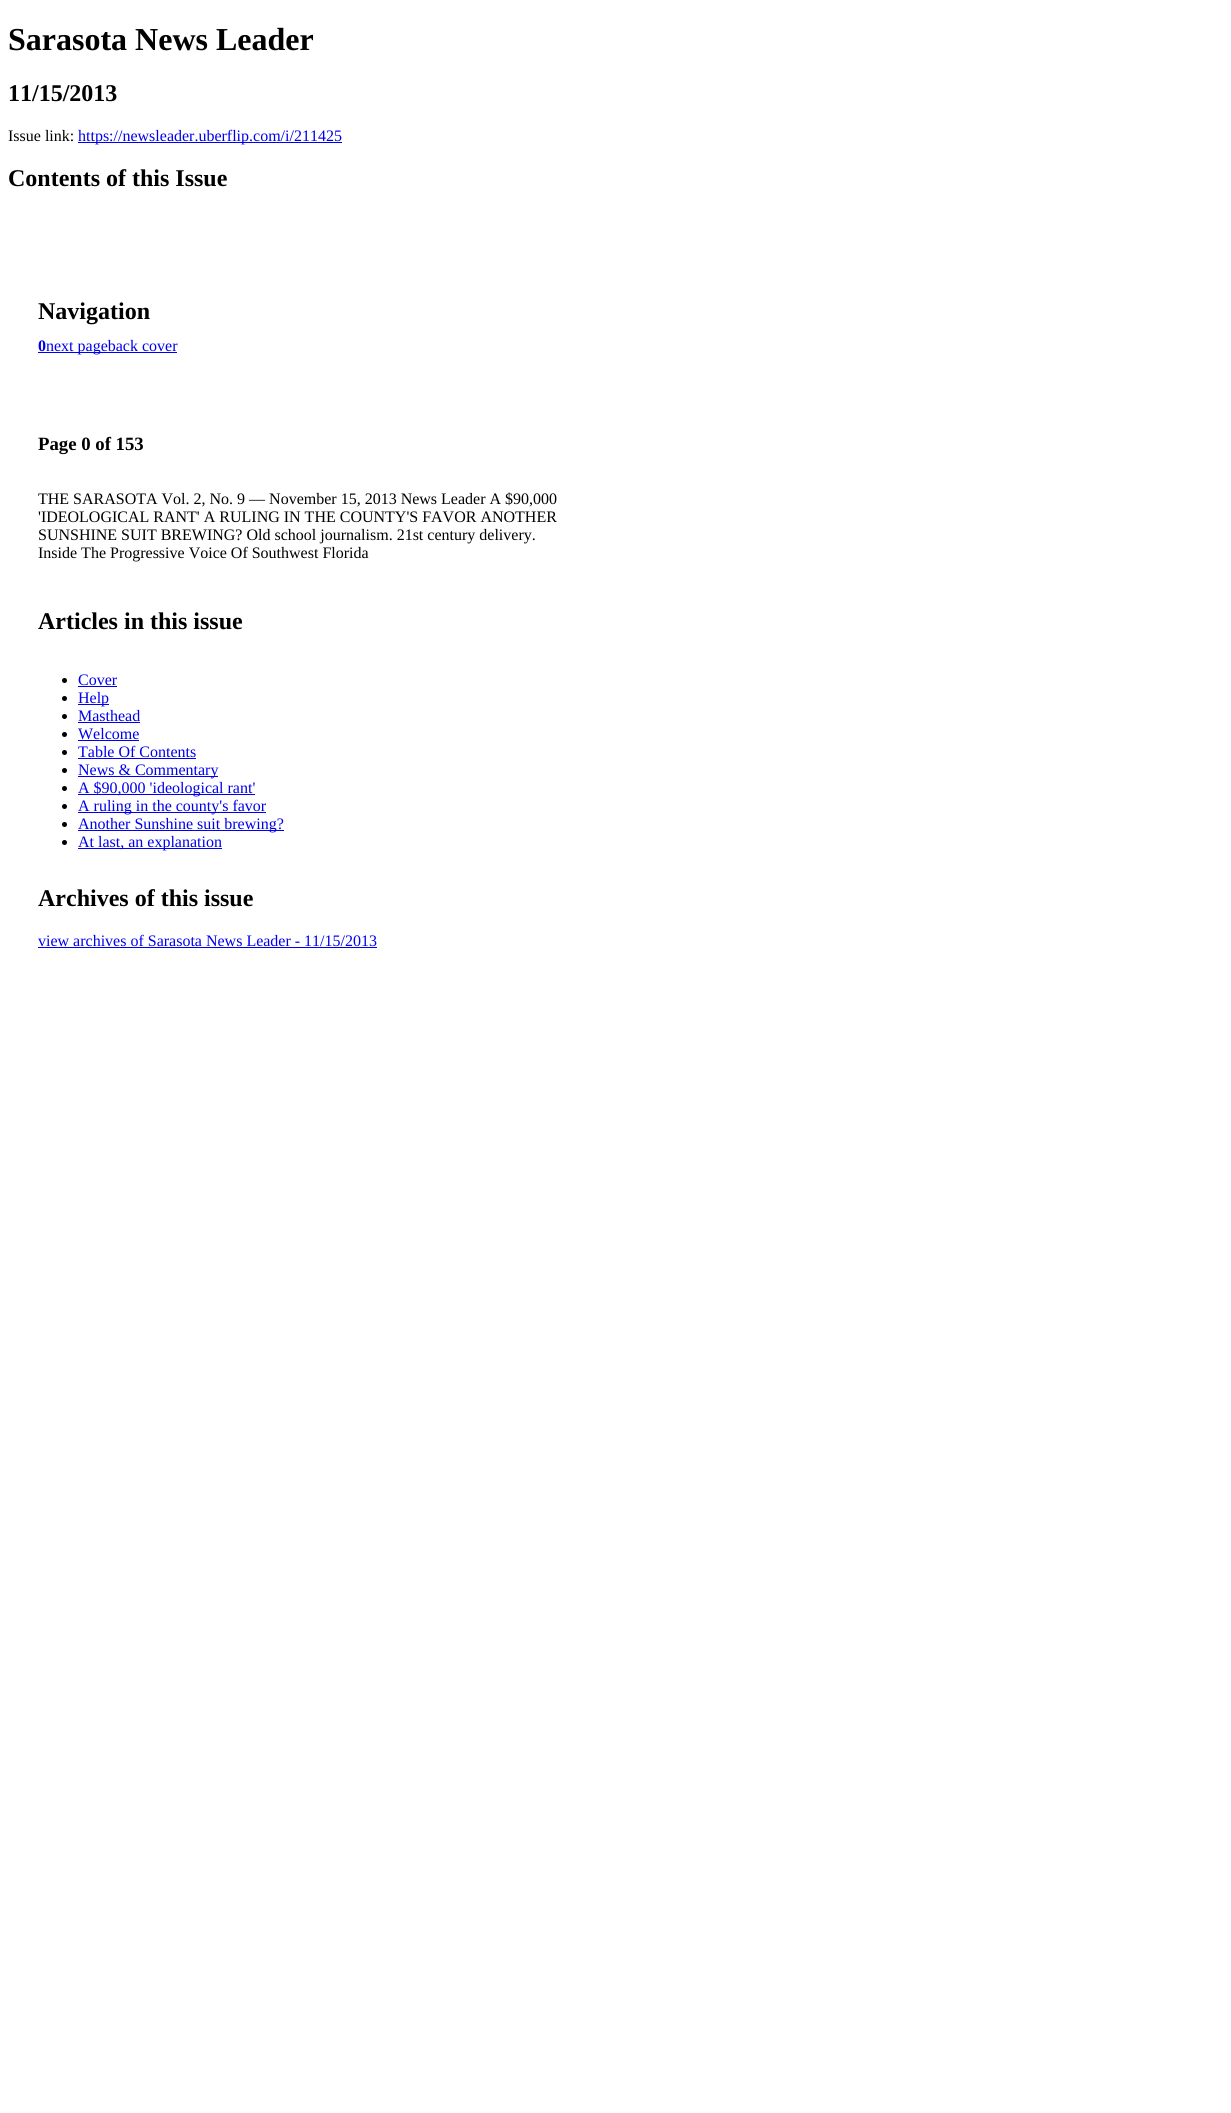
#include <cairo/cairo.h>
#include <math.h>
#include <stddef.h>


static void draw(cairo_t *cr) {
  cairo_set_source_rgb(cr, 1, 1, 1);
  cairo_paint(cr);
  cairo_set_source_rgb(cr, 0, 0, 238 / 255.0);
  cairo_rectangle(cr, 78, 142, 264, 1);
  cairo_fill(cr);
  cairo_rectangle(cr, 38, 352, 139, 1);
  cairo_fill(cr);
  cairo_set_source_rgb(cr, 0, 0, 0);
  cairo_arc(cr, 64.5, 680.5, 2.5, 0, 2 * M_PI);
  cairo_fill(cr);
  cairo_set_source_rgb(cr, 0, 0, 238 / 255.0);
  cairo_rectangle(cr, 78, 686, 39, 1);
  cairo_fill(cr);
  cairo_set_source_rgb(cr, 0, 0, 0);
  cairo_arc(cr, 64.5, 698.5, 2.5, 0, 2 * M_PI);
  cairo_fill(cr);
  cairo_set_source_rgb(cr, 0, 0, 238 / 255.0);
  cairo_rectangle(cr, 78, 704, 31, 1);
  cairo_fill(cr);
  cairo_set_source_rgb(cr, 0, 0, 0);
  cairo_arc(cr, 64.5, 716.5, 2.5, 0, 2 * M_PI);
  cairo_fill(cr);
  cairo_set_source_rgb(cr, 0, 0, 238 / 255.0);
  cairo_rectangle(cr, 78, 722, 62, 1);
  cairo_fill(cr);
  cairo_set_source_rgb(cr, 0, 0, 0);
  cairo_arc(cr, 64.5, 734.5, 2.5, 0, 2 * M_PI);
  cairo_fill(cr);
  cairo_set_source_rgb(cr, 0, 0, 238 / 255.0);
  cairo_rectangle(cr, 78, 740, 61, 1);
  cairo_fill(cr);
  cairo_set_source_rgb(cr, 0, 0, 0);
  cairo_arc(cr, 64.5, 752.5, 2.5, 0, 2 * M_PI);
  cairo_fill(cr);
  cairo_set_source_rgb(cr, 0, 0, 238 / 255.0);
  cairo_rectangle(cr, 78, 758, 118, 1);
  cairo_fill(cr);
  cairo_set_source_rgb(cr, 0, 0, 0);
  cairo_arc(cr, 64.5, 770.5, 2.5, 0, 2 * M_PI);
  cairo_fill(cr);
  cairo_set_source_rgb(cr, 0, 0, 238 / 255.0);
  cairo_rectangle(cr, 78, 776, 140, 1);
  cairo_fill(cr);
  cairo_set_source_rgb(cr, 0, 0, 0);
  cairo_arc(cr, 64.5, 788.5, 2.5, 0, 2 * M_PI);
  cairo_fill(cr);
  cairo_set_source_rgb(cr, 0, 0, 238 / 255.0);
  cairo_rectangle(cr, 78, 794, 177, 1);
  cairo_fill(cr);
  cairo_set_source_rgb(cr, 0, 0, 0);
  cairo_arc(cr, 64.5, 806.5, 2.5, 0, 2 * M_PI);
  cairo_fill(cr);
  cairo_set_source_rgb(cr, 0, 0, 238 / 255.0);
  cairo_rectangle(cr, 78, 812, 188, 1);
  cairo_fill(cr);
  cairo_set_source_rgb(cr, 0, 0, 0);
  cairo_arc(cr, 64.5, 824.5, 2.5, 0, 2 * M_PI);
  cairo_fill(cr);
  cairo_set_source_rgb(cr, 0, 0, 238 / 255.0);
  cairo_rectangle(cr, 78, 830, 206, 1);
  cairo_fill(cr);
  cairo_set_source_rgb(cr, 0, 0, 0);
  cairo_arc(cr, 64.5, 842.5, 2.5, 0, 2 * M_PI);
  cairo_fill(cr);
  cairo_set_source_rgb(cr, 0, 0, 238 / 255.0);
  cairo_rectangle(cr, 78, 848, 144, 1);
  cairo_fill(cr);
  cairo_rectangle(cr, 38, 947, 339, 1);
  cairo_fill(cr);
  cairo_select_font_face(cr, "Liberation Serif", CAIRO_FONT_SLANT_NORMAL, CAIRO_FONT_WEIGHT_BOLD);
  cairo_set_font_size(cr, 32);
  cairo_set_source_rgb(cr, 0, 0, 0);
  cairo_move_to(cr, 8, 50);
  cairo_show_text(cr, "Sarasota News Leader");
  cairo_set_font_size(cr, 24);
  cairo_move_to(cr, 8, 101);
  cairo_show_text(cr, "11/15/2013");
  cairo_select_font_face(cr, "Liberation Serif", CAIRO_FONT_SLANT_NORMAL, CAIRO_FONT_WEIGHT_NORMAL);
  cairo_set_font_size(cr, 16);
  cairo_move_to(cr, 8, 141);
  cairo_show_text(cr, "Issue link:");
  cairo_set_source_rgb(cr, 0, 0, 238 / 255.0);
  cairo_move_to(cr, 78, 141);
  cairo_show_text(cr, "https://newsleader.uberflip.com/i/211425");
  cairo_select_font_face(cr, "Liberation Serif", CAIRO_FONT_SLANT_NORMAL, CAIRO_FONT_WEIGHT_BOLD);
  cairo_set_font_size(cr, 24);
  cairo_set_source_rgb(cr, 0, 0, 0);
  cairo_move_to(cr, 8, 186);
  cairo_show_text(cr, "Contents of this Issue");
  cairo_move_to(cr, 38, 319);
  cairo_show_text(cr, "Navigation");
  cairo_set_font_size(cr, 16);
  cairo_set_source_rgb(cr, 0, 0, 238 / 255.0);
  cairo_move_to(cr, 38, 351);
  cairo_show_text(cr, "0");
  cairo_select_font_face(cr, "Liberation Serif", CAIRO_FONT_SLANT_NORMAL, CAIRO_FONT_WEIGHT_NORMAL);
  cairo_move_to(cr, 46, 351);
  cairo_show_text(cr, "next pageback cover");
  cairo_select_font_face(cr, "Liberation Serif", CAIRO_FONT_SLANT_NORMAL, CAIRO_FONT_WEIGHT_BOLD);
  cairo_set_font_size(cr, 18.75);
  cairo_set_source_rgb(cr, 0, 0, 0);
  cairo_move_to(cr, 38, 450);
  cairo_show_text(cr, "Page 0 of 153");
  cairo_select_font_face(cr, "Liberation Serif", CAIRO_FONT_SLANT_NORMAL, CAIRO_FONT_WEIGHT_NORMAL);
  cairo_set_font_size(cr, 16);
  cairo_move_to(cr, 38, 504);
  cairo_show_text(cr, "THE SARASOTA Vol. 2, No. 9 — November 15, 2013 News Leader A $90,000");
  cairo_move_to(cr, 38, 522);
  cairo_show_text(cr, "'IDEOLOGICAL RANT' A RULING IN THE COUNTY'S FAVOR ANOTHER");
  cairo_move_to(cr, 38, 540);
  cairo_show_text(cr, "SUNSHINE SUIT BREWING? Old school journalism. 21st century delivery.");
  cairo_move_to(cr, 38, 558);
  cairo_show_text(cr, "Inside The Progressive Voice Of Southwest Florida");
  cairo_select_font_face(cr, "Liberation Serif", CAIRO_FONT_SLANT_NORMAL, CAIRO_FONT_WEIGHT_BOLD);
  cairo_set_font_size(cr, 24);
  cairo_move_to(cr, 38, 629);
  cairo_show_text(cr, "Articles in this issue");
  cairo_select_font_face(cr, "Liberation Serif", CAIRO_FONT_SLANT_NORMAL, CAIRO_FONT_WEIGHT_NORMAL);
  cairo_set_font_size(cr, 16);
  cairo_set_source_rgb(cr, 0, 0, 238 / 255.0);
  cairo_move_to(cr, 78, 685);
  cairo_show_text(cr, "Cover");
  cairo_move_to(cr, 78, 703);
  cairo_show_text(cr, "Help");
  cairo_move_to(cr, 78, 721);
  cairo_show_text(cr, "Masthead");
  cairo_move_to(cr, 78, 739);
  cairo_show_text(cr, "Welcome");
  cairo_move_to(cr, 78, 757);
  cairo_show_text(cr, "Table Of Contents");
  cairo_move_to(cr, 78, 775);
  cairo_show_text(cr, "News & Commentary");
  cairo_move_to(cr, 78, 793);
  cairo_show_text(cr, "A $90,000 'ideological rant'");
  cairo_move_to(cr, 78, 811);
  cairo_show_text(cr, "A ruling in the county's favor");
  cairo_move_to(cr, 78, 829);
  cairo_show_text(cr, "Another Sunshine suit brewing?");
  cairo_move_to(cr, 78, 847);
  cairo_show_text(cr, "At last, an explanation");
  cairo_select_font_face(cr, "Liberation Serif", CAIRO_FONT_SLANT_NORMAL, CAIRO_FONT_WEIGHT_BOLD);
  cairo_set_font_size(cr, 24);
  cairo_set_source_rgb(cr, 0, 0, 0);
  cairo_move_to(cr, 38, 906);
  cairo_show_text(cr, "Archives of this issue");
  cairo_select_font_face(cr, "Liberation Serif", CAIRO_FONT_SLANT_NORMAL, CAIRO_FONT_WEIGHT_NORMAL);
  cairo_set_font_size(cr, 16);
  cairo_set_source_rgb(cr, 0, 0, 238 / 255.0);
  cairo_move_to(cr, 38, 946);
  cairo_show_text(cr, "view archives of Sarasota News Leader - 11/15/2013");
}

int main(void) {
  cairo_surface_t *surface = cairo_image_surface_create(CAIRO_FORMAT_RGB24, 1231, 2113);
  cairo_t *cr = cairo_create(surface);
  cairo_font_options_t *options = cairo_font_options_create();
  cairo_font_options_set_hint_metrics(options, CAIRO_HINT_METRICS_OFF);
  cairo_font_options_set_hint_style(options, CAIRO_HINT_STYLE_NONE);
  cairo_set_font_options(cr, options);
  cairo_set_miter_limit(cr, 4);
  draw(cr);
  cairo_surface_write_to_png(surface, "out.png");
  cairo_font_options_destroy(options);
  cairo_destroy(cr);
  cairo_surface_destroy(surface);
  return 0;
}
